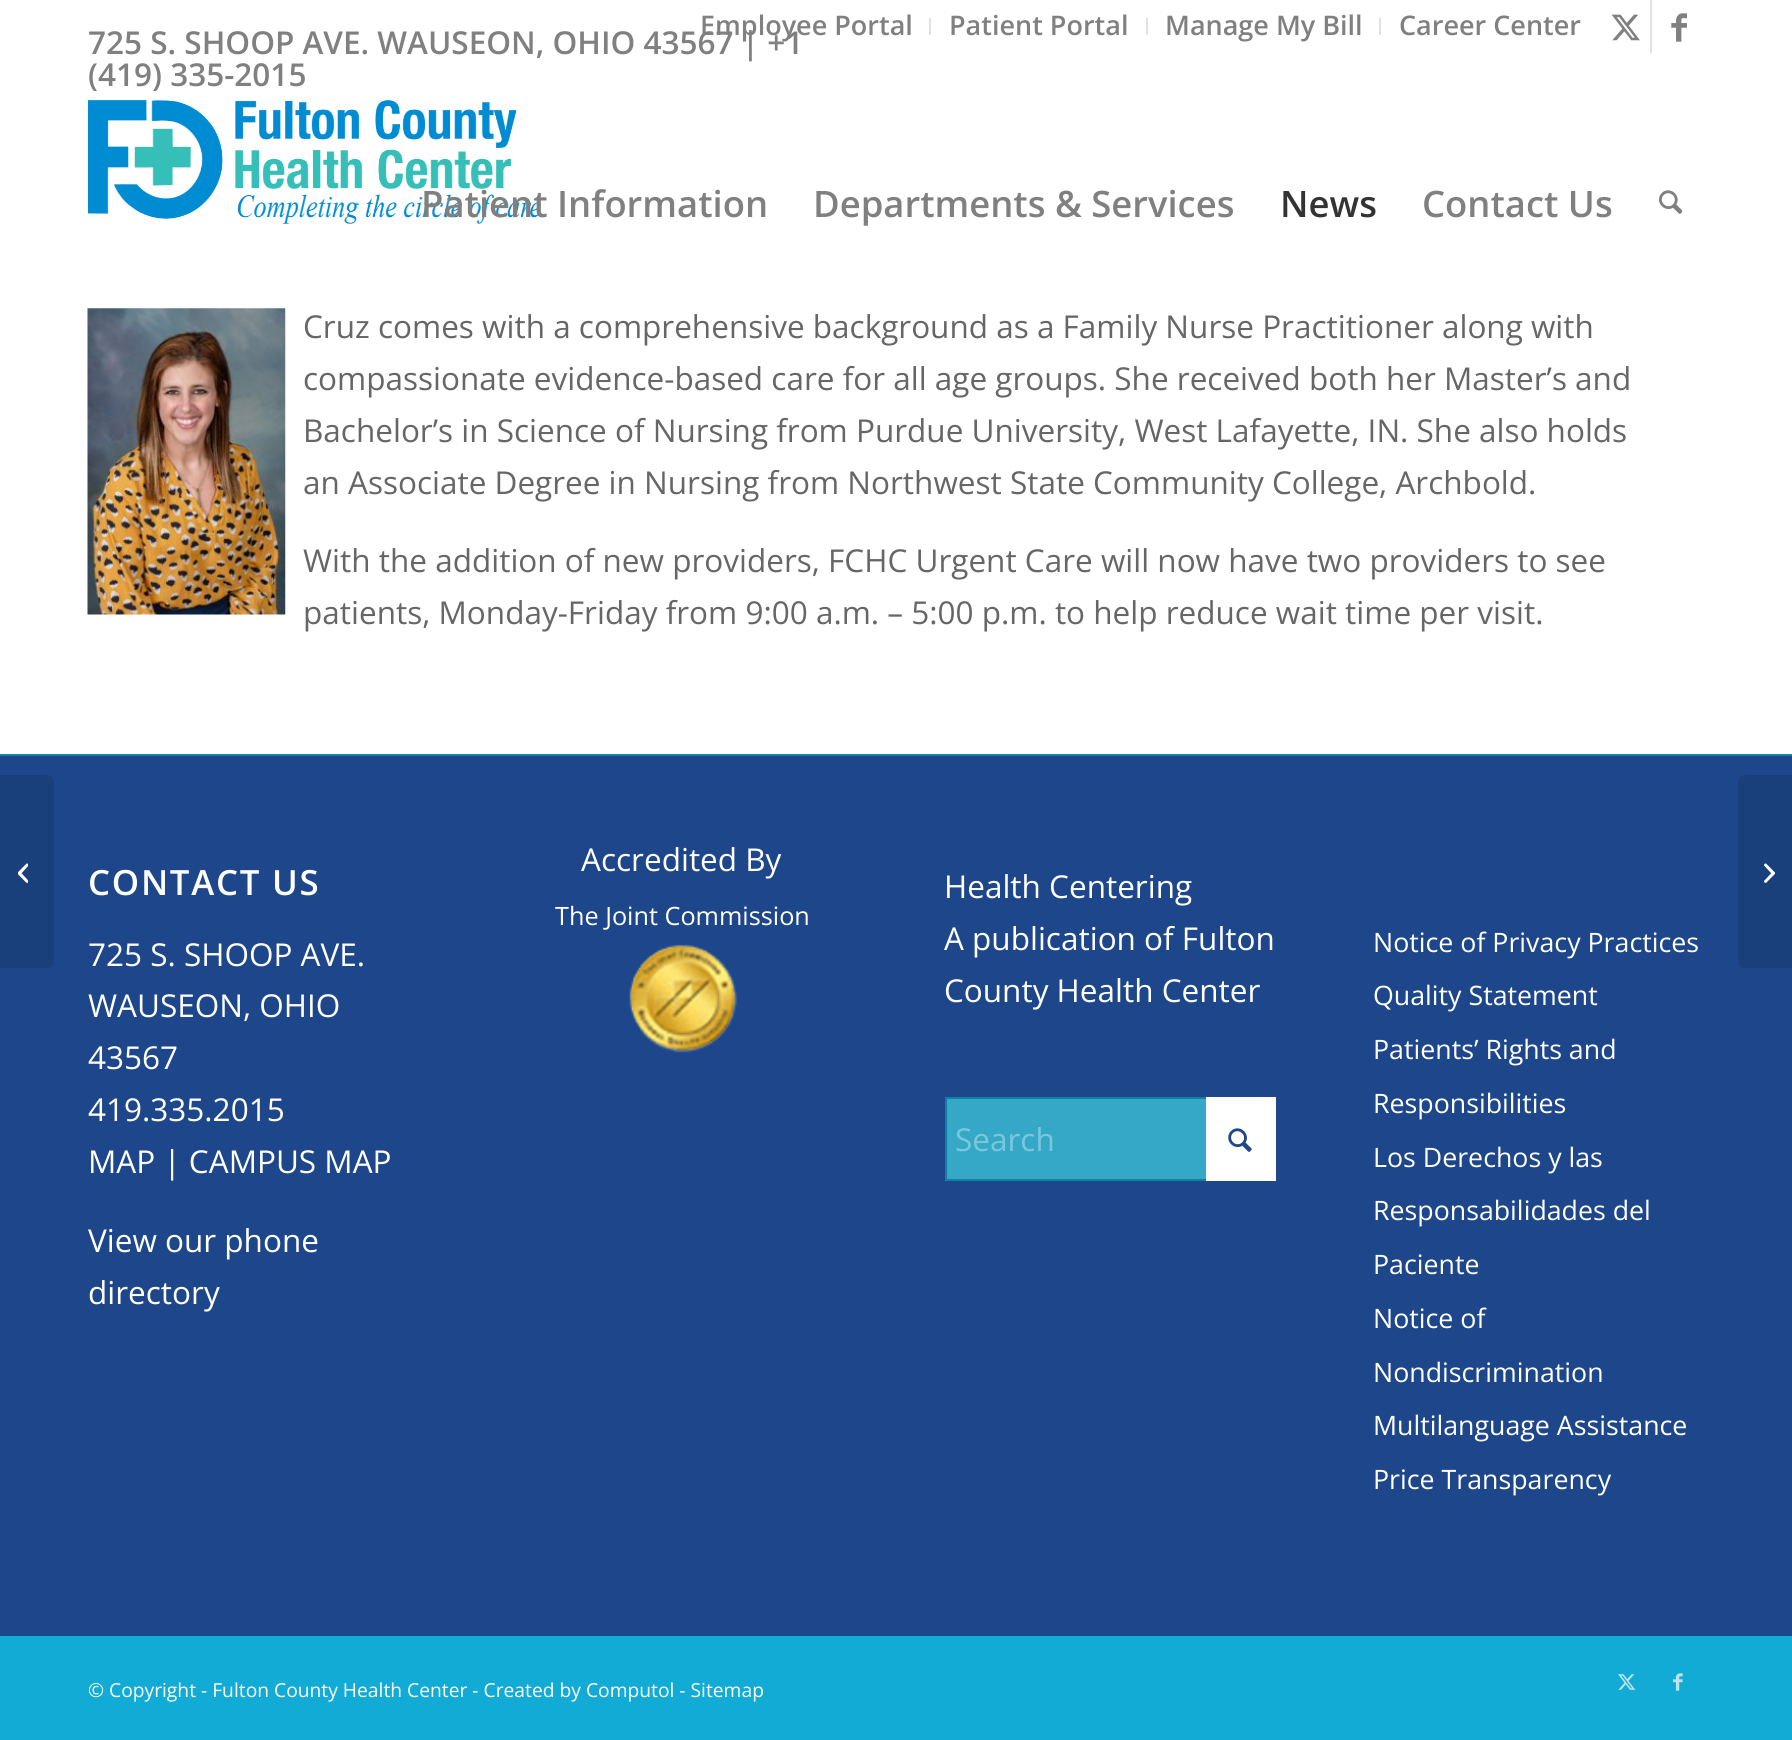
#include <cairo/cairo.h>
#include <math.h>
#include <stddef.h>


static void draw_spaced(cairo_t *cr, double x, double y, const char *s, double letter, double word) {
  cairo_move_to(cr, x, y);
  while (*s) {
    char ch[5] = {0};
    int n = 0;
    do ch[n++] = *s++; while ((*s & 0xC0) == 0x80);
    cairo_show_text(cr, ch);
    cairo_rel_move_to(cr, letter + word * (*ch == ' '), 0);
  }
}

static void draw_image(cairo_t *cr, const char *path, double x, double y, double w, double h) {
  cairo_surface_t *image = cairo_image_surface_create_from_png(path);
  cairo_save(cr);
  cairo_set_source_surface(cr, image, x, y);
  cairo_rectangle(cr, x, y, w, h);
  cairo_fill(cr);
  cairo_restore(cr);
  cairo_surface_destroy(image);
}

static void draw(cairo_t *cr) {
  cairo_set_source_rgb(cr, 1, 1, 1);
  cairo_paint(cr);
  cairo_set_source_rgb(cr, 225 / 255.0, 225 / 255.0, 225 / 255.0);
  cairo_rectangle(cr, 929, 18, 2, 17);
  cairo_fill(cr);
  cairo_rectangle(cr, 1146, 18, 2, 17);
  cairo_fill(cr);
  cairo_rectangle(cr, 1379, 18, 2, 17);
  cairo_fill(cr);
  cairo_rectangle(cr, 1650, 0, 2, 53);
  cairo_fill(cr);
  draw_image(cr, "images/1.png", 1611, 14, 29, 27);
  draw_image(cr, "images/2.png", 1671, 13, 16, 29);
  draw_image(cr, "images/3.png", 88, 100, 453, 124);
  draw_image(cr, "images/4.png", 1659, 190, 23, 24);
  cairo_set_source_rgb(cr, 29 / 255.0, 71 / 255.0, 138 / 255.0);
  cairo_rectangle(cr, 0, 756, 1792, 880);
  cairo_fill(cr);
  cairo_set_source_rgb(cr, 26 / 255.0, 64 / 255.0, 124 / 255.0);
  cairo_new_path(cr);
  cairo_move_to(cr, 0, 775);
  cairo_line_to(cr, 47, 775);
  cairo_curve_to(cr, 51, 775, 54, 778, 54, 782);
  cairo_line_to(cr, 54, 961);
  cairo_curve_to(cr, 54, 965, 51, 968, 47, 968);
  cairo_line_to(cr, 0, 968);
  cairo_close_path(cr);
  cairo_fill(cr);
  draw_image(cr, "images/5.png", 18, 863, 10, 20);
  draw_image(cr, "images/6.png", 87, 308, 199, 307);
  cairo_set_source_rgb(cr, 15 / 255.0, 129 / 255.0, 161 / 255.0);
  cairo_rectangle(cr, 0, 754, 1792, 2);
  cairo_fill(cr);
  draw_image(cr, "images/7.png", 629, 944, 109, 109);
  cairo_set_source_rgb(cr, 54 / 255.0, 168 / 255.0, 199 / 255.0);
  cairo_rectangle(cr, 947, 1099, 259, 80);
  cairo_fill(cr);
  cairo_rectangle(cr, 946, 1098, 329, 82);
  cairo_set_source_rgb(cr, 15 / 255.0, 129 / 255.0, 161 / 255.0);
  cairo_stroke(cr);
  cairo_set_source_rgb(cr, 1, 1, 1);
  cairo_rectangle(cr, 1206, 1097, 70, 84);
  cairo_fill(cr);
  draw_image(cr, "images/8.png", 1228, 1128, 24, 24);
  cairo_set_source_rgb(cr, 17 / 255.0, 171 / 255.0, 214 / 255.0);
  cairo_rectangle(cr, 0, 1636, 1792, 104);
  cairo_fill(cr);
  draw_image(cr, "images/9.png", 1618, 1674, 18, 16);
  draw_image(cr, "images/10.png", 1673, 1673, 10, 18);
  cairo_set_source_rgb(cr, 26 / 255.0, 64 / 255.0, 124 / 255.0);
  cairo_new_path(cr);
  cairo_move_to(cr, 1745, 775);
  cairo_line_to(cr, 1792, 775);
  cairo_line_to(cr, 1792, 968);
  cairo_line_to(cr, 1745, 968);
  cairo_curve_to(cr, 1741, 968, 1738, 965, 1738, 961);
  cairo_line_to(cr, 1738, 782);
  cairo_curve_to(cr, 1738, 778, 1741, 775, 1745, 775);
  cairo_close_path(cr);
  cairo_fill(cr);
  draw_image(cr, "images/11.png", 1764, 863, 11, 20);
  cairo_select_font_face(cr, "Open Sans SemiBold", CAIRO_FONT_SLANT_NORMAL, CAIRO_FONT_WEIGHT_NORMAL);
  cairo_set_font_size(cr, 31.5);
  cairo_set_source_rgb(cr, 128 / 255.0, 128 / 255.0, 128 / 255.0);
  cairo_move_to(cr, 88, 54);
  cairo_show_text(cr, "725 S. SHOOP AVE. WAUSEON, OHIO 43567 | +1");
  cairo_move_to(cr, 88, 86);
  cairo_show_text(cr, "(419) 335-2015");
  cairo_set_font_size(cr, 27);
  cairo_move_to(cr, 700, 35);
  cairo_show_text(cr, "Employee Portal");
  cairo_move_to(cr, 949, 35);
  cairo_show_text(cr, "Patient Portal");
  cairo_move_to(cr, 1165, 35);
  cairo_show_text(cr, "Manage My Bill");
  cairo_move_to(cr, 1399, 35);
  cairo_show_text(cr, "Career Center");
  cairo_set_font_size(cr, 36.4);
  cairo_move_to(cr, 421, 217);
  cairo_show_text(cr, "Patient Information");
  cairo_move_to(cr, 813, 217);
  cairo_show_text(cr, "Departments & Services");
  cairo_set_source_rgb(cr, 51 / 255.0, 51 / 255.0, 51 / 255.0);
  cairo_move_to(cr, 1280, 217);
  cairo_show_text(cr, "News");
  cairo_set_source_rgb(cr, 128 / 255.0, 128 / 255.0, 128 / 255.0);
  cairo_move_to(cr, 1422, 217);
  cairo_show_text(cr, "Contact Us");
  cairo_select_font_face(cr, "Open Sans", CAIRO_FONT_SLANT_NORMAL, CAIRO_FONT_WEIGHT_NORMAL);
  cairo_set_font_size(cr, 31.5);
  cairo_set_source_rgb(cr, 102 / 255.0, 102 / 255.0, 102 / 255.0);
  cairo_move_to(cr, 303, 338);
  cairo_show_text(cr, "Cruz comes with a comprehensive background as a Family Nurse Practitioner along with");
  cairo_move_to(cr, 303, 390);
  cairo_show_text(cr, "compassionate evidence-based care for all age groups. She received both her Master’s and");
  cairo_move_to(cr, 303, 442);
  cairo_show_text(cr, "Bachelor’s in Science of Nursing from Purdue University, West Lafayette, IN. She also holds");
  cairo_move_to(cr, 303, 494);
  cairo_show_text(cr, "an Associate Degree in Nursing from Northwest State Community College, Archbold.");
  cairo_move_to(cr, 303, 572);
  cairo_show_text(cr, "With the addition of new providers, FCHC Urgent Care will now have two providers to see");
  cairo_move_to(cr, 303, 624);
  cairo_show_text(cr, "patients, Monday-Friday from 9:00 a.m. – 5:00 p.m. to help reduce wait time per visit.");
  cairo_select_font_face(cr, "Open Sans SemiBold", CAIRO_FONT_SLANT_NORMAL, CAIRO_FONT_WEIGHT_NORMAL);
  cairo_set_font_size(cr, 34.75);
  cairo_set_source_rgb(cr, 1, 1, 1);
  draw_spaced(cr, 88, 895, "CONTACT US", 1.75, 0);
  cairo_select_font_face(cr, "Open Sans", CAIRO_FONT_SLANT_NORMAL, CAIRO_FONT_WEIGHT_NORMAL);
  cairo_set_font_size(cr, 31.5);
  cairo_move_to(cr, 88, 966);
  cairo_show_text(cr, "725 S. SHOOP AVE.");
  cairo_move_to(cr, 88, 1017);
  cairo_show_text(cr, "WAUSEON, OHIO");
  cairo_move_to(cr, 88, 1069);
  cairo_show_text(cr, "43567");
  cairo_move_to(cr, 88, 1121);
  cairo_show_text(cr, "419.335.2015");
  cairo_move_to(cr, 88, 1173);
  cairo_show_text(cr, "MAP | CAMPUS MAP");
  cairo_move_to(cr, 88, 1252);
  cairo_show_text(cr, "View our phone");
  cairo_move_to(cr, 88, 1304);
  cairo_show_text(cr, "directory");
  cairo_move_to(cr, 581, 871);
  cairo_show_text(cr, "Accredited By");
  cairo_set_font_size(cr, 25.25);
  cairo_move_to(cr, 555, 925);
  cairo_show_text(cr, "The Joint Commission");
  cairo_set_font_size(cr, 31.5);
  cairo_move_to(cr, 944, 898);
  cairo_show_text(cr, "Health Centering");
  cairo_move_to(cr, 944, 950);
  cairo_show_text(cr, "A publication of Fulton");
  cairo_move_to(cr, 944, 1002);
  cairo_show_text(cr, "County Health Center");
  cairo_set_source_rgb(cr, 122 / 255.0, 199 / 255.0, 220 / 255.0);
  cairo_move_to(cr, 955, 1151);
  cairo_show_text(cr, "Search");
  cairo_set_font_size(cr, 26.75);
  cairo_set_source_rgb(cr, 1, 1, 1);
  cairo_move_to(cr, 1373, 952);
  cairo_show_text(cr, "Notice of Privacy Practices");
  cairo_move_to(cr, 1373, 1005);
  cairo_show_text(cr, "Quality Statement");
  cairo_move_to(cr, 1373, 1059);
  cairo_show_text(cr, "Patients’ Rights and");
  cairo_move_to(cr, 1373, 1113);
  cairo_show_text(cr, "Responsibilities");
  cairo_move_to(cr, 1373, 1167);
  cairo_show_text(cr, "Los Derechos y las");
  cairo_move_to(cr, 1373, 1220);
  cairo_show_text(cr, "Responsabilidades del");
  cairo_move_to(cr, 1373, 1274);
  cairo_show_text(cr, "Paciente");
  cairo_move_to(cr, 1373, 1328);
  cairo_show_text(cr, "Notice of");
  cairo_move_to(cr, 1373, 1382);
  cairo_show_text(cr, "Nondiscrimination");
  cairo_move_to(cr, 1373, 1435);
  cairo_show_text(cr, "Multilanguage Assistance");
  cairo_move_to(cr, 1373, 1489);
  cairo_show_text(cr, "Price Transparency");
  cairo_set_font_size(cr, 19.25);
  cairo_move_to(cr, 88, 1697);
  cairo_show_text(cr, "© Copyright - Fulton County Health Center - Created by Computol - Sitemap");
}

int main(void) {
  cairo_surface_t *surface = cairo_image_surface_create(CAIRO_FORMAT_RGB24, 1792, 1740);
  cairo_t *cr = cairo_create(surface);
  cairo_font_options_t *options = cairo_font_options_create();
  cairo_font_options_set_hint_metrics(options, CAIRO_HINT_METRICS_OFF);
  cairo_font_options_set_hint_style(options, CAIRO_HINT_STYLE_NONE);
  cairo_set_font_options(cr, options);
  cairo_set_miter_limit(cr, 4);
  draw(cr);
  cairo_surface_write_to_png(surface, "out.png");
  cairo_font_options_destroy(options);
  cairo_destroy(cr);
  cairo_surface_destroy(surface);
  return 0;
}
